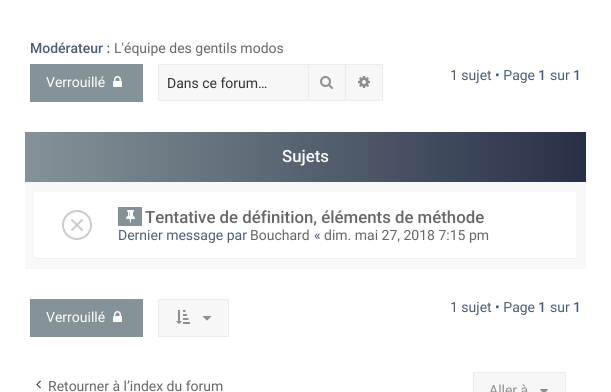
#include <cairo/cairo.h>
#include <math.h>
#include <stddef.h>


static void draw_image(cairo_t *cr, const char *path, double x, double y, double w, double h) {
  cairo_surface_t *image = cairo_image_surface_create_from_png(path);
  cairo_save(cr);
  cairo_set_source_surface(cr, image, x, y);
  cairo_rectangle(cr, x, y, w, h);
  cairo_fill(cr);
  cairo_restore(cr);
  cairo_surface_destroy(image);
}

static void draw(cairo_t *cr) {
  cairo_pattern_t *gradient;
  cairo_set_source_rgb(cr, 1, 1, 1);
  cairo_paint(cr);
  cairo_set_source_rgb(cr, 133 / 255.0, 147 / 255.0, 152 / 255.0);
  cairo_rectangle(cr, 30, 64, 113, 38);
  cairo_fill(cr);
  draw_image(cr, "images/1.png", 113, 76, 9, 11);
  cairo_set_source_rgb(cr, 247 / 255.0, 247 / 255.0, 247 / 255.0);
  cairo_rectangle(cr, 159, 65, 149, 35);
  cairo_fill(cr);
  cairo_set_source_rgb(cr, 237 / 255.0, 236 / 255.0, 236 / 255.0);
  cairo_rectangle(cr, 158, 64, 150, 1);
  cairo_fill(cr);
  cairo_rectangle(cr, 158, 100, 150, 1);
  cairo_fill(cr);
  cairo_rectangle(cr, 158, 64, 1, 37);
  cairo_fill(cr);
  cairo_set_source_rgb(cr, 247 / 255.0, 247 / 255.0, 247 / 255.0);
  cairo_rectangle(cr, 308.5, 64.5, 37, 36);
  cairo_fill_preserve(cr);
  cairo_set_source_rgb(cr, 237 / 255.0, 236 / 255.0, 236 / 255.0);
  cairo_set_line_width(cr, 1);
  cairo_stroke(cr);
  draw_image(cr, "images/2.png", 320, 76, 13, 13);
  cairo_set_source_rgb(cr, 247 / 255.0, 247 / 255.0, 247 / 255.0);
  cairo_rectangle(cr, 346, 65, 36, 35);
  cairo_fill(cr);
  cairo_set_source_rgb(cr, 237 / 255.0, 236 / 255.0, 236 / 255.0);
  cairo_rectangle(cr, 346, 64, 37, 1);
  cairo_fill(cr);
  cairo_rectangle(cr, 382, 64, 1, 37);
  cairo_fill(cr);
  cairo_rectangle(cr, 346, 100, 37, 1);
  cairo_fill(cr);
  draw_image(cr, "images/3.png", 358, 76, 12, 12);
  cairo_set_source_rgb(cr, 248 / 255.0, 248 / 255.0, 248 / 255.0);
  cairo_rectangle(cr, 25, 182, 561, 87);
  cairo_fill(cr);
  gradient = cairo_pattern_create_linear(25, 157, 586, 157);
  cairo_pattern_add_color_stop_rgba(gradient, 0, 133 / 255.0, 147 / 255.0, 152 / 255.0, 1);
  cairo_pattern_add_color_stop_rgba(gradient, 1, 40 / 255.0, 48 / 255.0, 72 / 255.0, 1);
  cairo_set_source(cr, gradient);
  cairo_pattern_destroy(gradient);
  cairo_rectangle(cr, 25, 132, 561, 50);
  cairo_fill(cr);
  cairo_set_source_rgb(cr, 1, 1, 1);
  cairo_rectangle(cr, 35, 192, 541, 66);
  cairo_fill(cr);
  cairo_set_source_rgb(cr, 236 / 255.0, 240 / 255.0, 241 / 255.0);
  cairo_rectangle(cr, 35, 258, 541, 1);
  cairo_fill(cr);
  draw_image(cr, "images/4.png", 62, 210, 30, 30);
  cairo_set_source_rgb(cr, 133 / 255.0, 147 / 255.0, 152 / 255.0);
  cairo_rectangle(cr, 118, 207, 24, 19);
  cairo_fill(cr);
  draw_image(cr, "images/5.png", 126, 210, 9, 13);
  cairo_set_source_rgb(cr, 247 / 255.0, 247 / 255.0, 247 / 255.0);
  cairo_rectangle(cr, 158.5, 299.5, 70, 37);
  cairo_fill_preserve(cr);
  cairo_set_source_rgb(cr, 237 / 255.0, 236 / 255.0, 236 / 255.0);
  cairo_stroke(cr);
  draw_image(cr, "images/6.png", 176, 310, 14, 14);
  draw_image(cr, "images/7.png", 203, 316, 8, 5);
  cairo_set_source_rgb(cr, 133 / 255.0, 147 / 255.0, 152 / 255.0);
  cairo_rectangle(cr, 30, 299, 113, 38);
  cairo_fill(cr);
  draw_image(cr, "images/1.png", 113, 311, 9, 11);
  draw_image(cr, "images/8.png", 36, 380, 5, 9);
  cairo_set_source_rgb(cr, 247 / 255.0, 247 / 255.0, 247 / 255.0);
  cairo_rectangle(cr, 473.5, 372.5, 92, 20);
  cairo_fill_preserve(cr);
  cairo_set_source_rgb(cr, 237 / 255.0, 236 / 255.0, 236 / 255.0);
  cairo_stroke(cr);
  draw_image(cr, "images/9.png", 540, 389, 8, 3);
  cairo_select_font_face(cr, "Roboto Medium", CAIRO_FONT_SLANT_NORMAL, CAIRO_FONT_WEIGHT_NORMAL);
  cairo_set_font_size(cr, 14);
  cairo_set_source_rgb(cr, 76 / 255.0, 93 / 255.0, 119 / 255.0);
  cairo_move_to(cr, 30, 53);
  cairo_show_text(cr, "Modérateur :");
  cairo_select_font_face(cr, "Roboto", CAIRO_FONT_SLANT_NORMAL, CAIRO_FONT_WEIGHT_NORMAL);
  cairo_set_source_rgb(cr, 103 / 255.0, 103 / 255.0, 103 / 255.0);
  cairo_move_to(cr, 114, 53);
  cairo_show_text(cr, "L'équipe des gentils modos");
  cairo_set_source_rgb(cr, 1, 1, 1);
  cairo_move_to(cr, 46, 87);
  cairo_show_text(cr, "Verrouillé");
  cairo_set_source_rgb(cr, 51 / 255.0, 51 / 255.0, 51 / 255.0);
  cairo_move_to(cr, 167, 88);
  cairo_show_text(cr, "Dans ce forum…");
  cairo_set_source_rgb(cr, 76 / 255.0, 93 / 255.0, 119 / 255.0);
  cairo_move_to(cr, 450, 80);
  cairo_show_text(cr, "1 sujet • Page");
  cairo_select_font_face(cr, "Roboto Medium", CAIRO_FONT_SLANT_NORMAL, CAIRO_FONT_WEIGHT_NORMAL);
  cairo_move_to(cr, 538, 80);
  cairo_show_text(cr, "1");
  cairo_select_font_face(cr, "Roboto", CAIRO_FONT_SLANT_NORMAL, CAIRO_FONT_WEIGHT_NORMAL);
  cairo_move_to(cr, 550, 80);
  cairo_show_text(cr, "sur");
  cairo_select_font_face(cr, "Roboto Medium", CAIRO_FONT_SLANT_NORMAL, CAIRO_FONT_WEIGHT_NORMAL);
  cairo_move_to(cr, 573, 80);
  cairo_show_text(cr, "1");
  cairo_set_font_size(cr, 16.8);
  cairo_set_source_rgb(cr, 1, 1, 1);
  cairo_move_to(cr, 282, 162);
  cairo_show_text(cr, "Sujets");
  cairo_set_source_rgb(cr, 103 / 255.0, 103 / 255.0, 103 / 255.0);
  cairo_move_to(cr, 145, 223);
  cairo_show_text(cr, "Tentative de définition, éléments de méthode");
  cairo_select_font_face(cr, "Roboto", CAIRO_FONT_SLANT_NORMAL, CAIRO_FONT_WEIGHT_NORMAL);
  cairo_set_font_size(cr, 14);
  cairo_set_source_rgb(cr, 76 / 255.0, 93 / 255.0, 119 / 255.0);
  cairo_move_to(cr, 118, 240);
  cairo_show_text(cr, "Dernier message par");
  cairo_set_source_rgb(cr, 103 / 255.0, 103 / 255.0, 103 / 255.0);
  cairo_move_to(cr, 250, 240);
  cairo_show_text(cr, "Bouchard");
  cairo_set_source_rgb(cr, 76 / 255.0, 93 / 255.0, 119 / 255.0);
  cairo_move_to(cr, 314, 240);
  cairo_show_text(cr, "«");
  cairo_set_source_rgb(cr, 103 / 255.0, 103 / 255.0, 103 / 255.0);
  cairo_move_to(cr, 324, 240);
  cairo_show_text(cr, "dim. mai 27, 2018 7:15 pm");
  cairo_set_source_rgb(cr, 76 / 255.0, 93 / 255.0, 119 / 255.0);
  cairo_move_to(cr, 450, 312);
  cairo_show_text(cr, "1 sujet • Page");
  cairo_select_font_face(cr, "Roboto Medium", CAIRO_FONT_SLANT_NORMAL, CAIRO_FONT_WEIGHT_NORMAL);
  cairo_move_to(cr, 538, 312);
  cairo_show_text(cr, "1");
  cairo_select_font_face(cr, "Roboto", CAIRO_FONT_SLANT_NORMAL, CAIRO_FONT_WEIGHT_NORMAL);
  cairo_move_to(cr, 550, 312);
  cairo_show_text(cr, "sur");
  cairo_select_font_face(cr, "Roboto Medium", CAIRO_FONT_SLANT_NORMAL, CAIRO_FONT_WEIGHT_NORMAL);
  cairo_move_to(cr, 573, 312);
  cairo_show_text(cr, "1");
  cairo_select_font_face(cr, "Roboto", CAIRO_FONT_SLANT_NORMAL, CAIRO_FONT_WEIGHT_NORMAL);
  cairo_set_source_rgb(cr, 1, 1, 1);
  cairo_move_to(cr, 46, 322);
  cairo_show_text(cr, "Verrouillé");
  cairo_set_source_rgb(cr, 103 / 255.0, 103 / 255.0, 103 / 255.0);
  cairo_move_to(cr, 48, 391);
  cairo_show_text(cr, "Retourner à l’index du forum");
  cairo_set_source_rgb(cr, 143 / 255.0, 143 / 255.0, 143 / 255.0);
  cairo_move_to(cr, 489, 395);
  cairo_show_text(cr, "Aller à");
}

int main(void) {
  cairo_surface_t *surface = cairo_image_surface_create(CAIRO_FORMAT_RGB24, 611, 392);
  cairo_t *cr = cairo_create(surface);
  cairo_font_options_t *options = cairo_font_options_create();
  cairo_font_options_set_hint_metrics(options, CAIRO_HINT_METRICS_OFF);
  cairo_font_options_set_hint_style(options, CAIRO_HINT_STYLE_NONE);
  cairo_set_font_options(cr, options);
  cairo_set_miter_limit(cr, 4);
  draw(cr);
  cairo_surface_write_to_png(surface, "out.png");
  cairo_font_options_destroy(options);
  cairo_destroy(cr);
  cairo_surface_destroy(surface);
  return 0;
}
